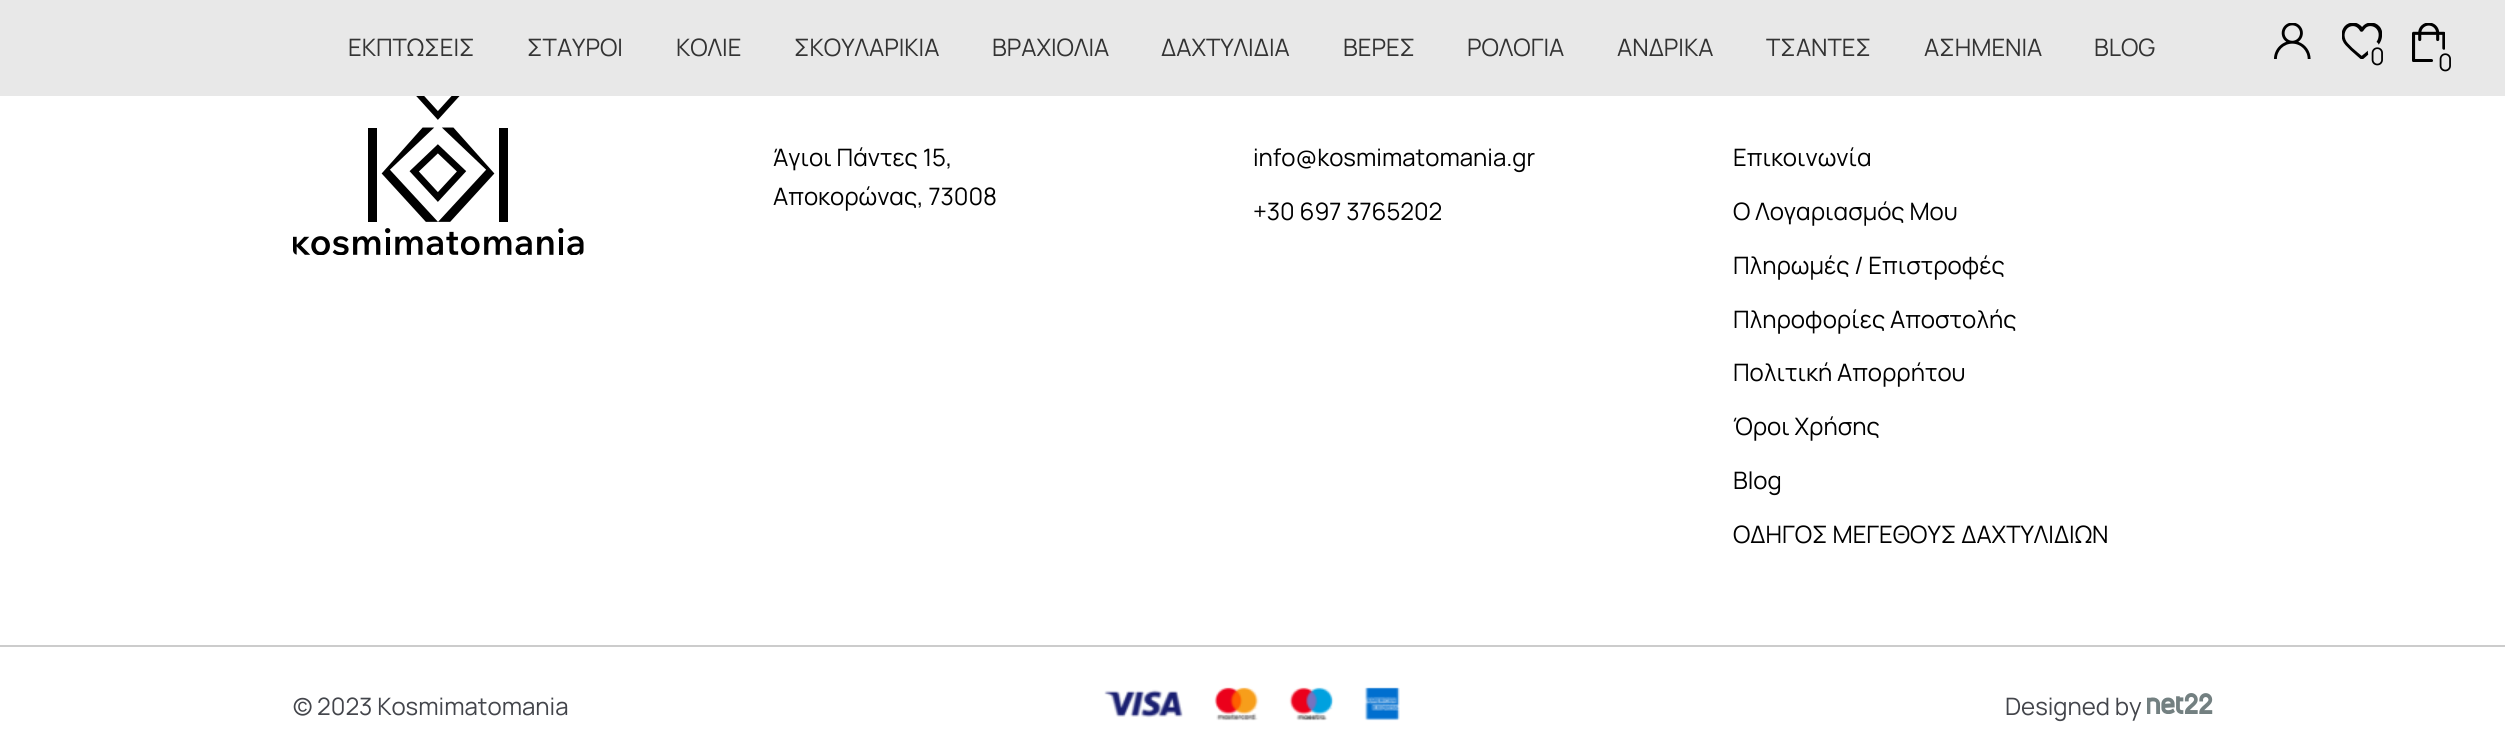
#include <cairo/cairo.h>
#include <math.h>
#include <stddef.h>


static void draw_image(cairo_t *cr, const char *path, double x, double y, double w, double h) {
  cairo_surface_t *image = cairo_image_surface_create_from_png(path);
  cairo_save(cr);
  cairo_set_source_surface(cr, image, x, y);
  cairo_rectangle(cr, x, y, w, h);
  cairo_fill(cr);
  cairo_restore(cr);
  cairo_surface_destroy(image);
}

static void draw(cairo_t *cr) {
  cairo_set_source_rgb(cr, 1, 1, 1);
  cairo_paint(cr);
  cairo_set_source_rgb(cr, 232 / 255.0, 232 / 255.0, 232 / 255.0);
  cairo_rectangle(cr, 0, 0, 2505, 96);
  cairo_fill(cr);
  draw_image(cr, "images/1.png", 2274, 23, 37, 36);
  draw_image(cr, "images/2.png", 2342, 23, 40, 36);
  draw_image(cr, "images/3.png", 2412, 23, 33, 39);
  draw_image(cr, "images/4.png", 293, 96, 291, 159);
  cairo_set_source_rgb(cr, 204 / 255.0, 204 / 255.0, 204 / 255.0);
  cairo_rectangle(cr, 0, 645, 2505, 2);
  cairo_fill(cr);
  draw_image(cr, "images/5.png", 1104, 687, 296, 34);
  draw_image(cr, "images/6.png", 2147, 693, 66, 21);
  cairo_select_font_face(cr, "Manrope", CAIRO_FONT_SLANT_NORMAL, CAIRO_FONT_WEIGHT_NORMAL);
  cairo_set_font_size(cr, 24);
  cairo_set_source_rgb(cr, 51 / 255.0, 51 / 255.0, 51 / 255.0);
  cairo_move_to(cr, 348, 56);
  cairo_show_text(cr, "ΕΚΠΤΩΣΕΙΣ");
  cairo_move_to(cr, 527, 56);
  cairo_show_text(cr, "ΣΤΑΥΡΟΙ");
  cairo_move_to(cr, 676, 56);
  cairo_show_text(cr, "ΚΟΛΙΕ");
  cairo_move_to(cr, 794, 56);
  cairo_show_text(cr, "ΣΚΟΥΛΑΡΙΚΙΑ");
  cairo_move_to(cr, 992, 56);
  cairo_show_text(cr, "ΒΡΑΧΙΟΛΙΑ");
  cairo_move_to(cr, 1161, 56);
  cairo_show_text(cr, "ΔΑΧΤΥΛΙΔΙΑ");
  cairo_move_to(cr, 1343, 56);
  cairo_show_text(cr, "ΒΕΡΕΣ");
  cairo_move_to(cr, 1467, 56);
  cairo_show_text(cr, "ΡΟΛΟΓΙΑ");
  cairo_move_to(cr, 1617, 56);
  cairo_show_text(cr, "ΑΝΔΡΙΚΑ");
  cairo_move_to(cr, 1766, 56);
  cairo_show_text(cr, "ΤΣΑΝΤΕΣ");
  cairo_move_to(cr, 1924, 56);
  cairo_show_text(cr, "ΑΣΗΜΕΝΙΑ");
  cairo_move_to(cr, 2094, 56);
  cairo_show_text(cr, "BLOG");
  cairo_set_source_rgb(cr, 0, 0, 0);
  cairo_move_to(cr, 2370, 65);
  cairo_show_text(cr, "0");
  cairo_move_to(cr, 2438, 71);
  cairo_show_text(cr, "0");
  cairo_move_to(cr, 773, 166);
  cairo_show_text(cr, "Άγιοι Πάντες 15,");
  cairo_move_to(cr, 773, 205);
  cairo_show_text(cr, "Αποκορώνας, 73008");
  cairo_move_to(cr, 1253, 166);
  cairo_show_text(cr, "info@kosmimatomania.gr");
  cairo_move_to(cr, 1253, 220);
  cairo_show_text(cr, "+30 697 3765202");
  cairo_move_to(cr, 1733, 166);
  cairo_show_text(cr, "Επικοινωνία");
  cairo_move_to(cr, 1733, 220);
  cairo_show_text(cr, "Ο Λογαριασμός Μου");
  cairo_move_to(cr, 1733, 274);
  cairo_show_text(cr, "Πληρωμές / Επιστροφές");
  cairo_move_to(cr, 1733, 328);
  cairo_show_text(cr, "Πληροφορίες Αποστολής");
  cairo_move_to(cr, 1733, 381);
  cairo_show_text(cr, "Πολιτική Απορρήτου");
  cairo_move_to(cr, 1733, 435);
  cairo_show_text(cr, "Όροι Χρήσης");
  cairo_move_to(cr, 1733, 489);
  cairo_show_text(cr, "Blog");
  cairo_move_to(cr, 1733, 543);
  cairo_show_text(cr, "ΟΔΗΓΟΣ ΜΕΓΕΘΟΥΣ ΔΑΧΤΥΛΙΔΙΩΝ");
  cairo_set_source_rgb(cr, 67 / 255.0, 69 / 255.0, 75 / 255.0);
  cairo_move_to(cr, 293, 715);
  cairo_show_text(cr, "© 2023 Kosmimatomania");
  cairo_move_to(cr, 2005, 715);
  cairo_show_text(cr, "Designed by");
}

int main(void) {
  cairo_surface_t *surface = cairo_image_surface_create(CAIRO_FORMAT_RGB24, 2505, 748);
  cairo_t *cr = cairo_create(surface);
  cairo_font_options_t *options = cairo_font_options_create();
  cairo_font_options_set_hint_metrics(options, CAIRO_HINT_METRICS_OFF);
  cairo_font_options_set_hint_style(options, CAIRO_HINT_STYLE_NONE);
  cairo_set_font_options(cr, options);
  cairo_set_miter_limit(cr, 4);
  draw(cr);
  cairo_surface_write_to_png(surface, "out.png");
  cairo_font_options_destroy(options);
  cairo_destroy(cr);
  cairo_surface_destroy(surface);
  return 0;
}
